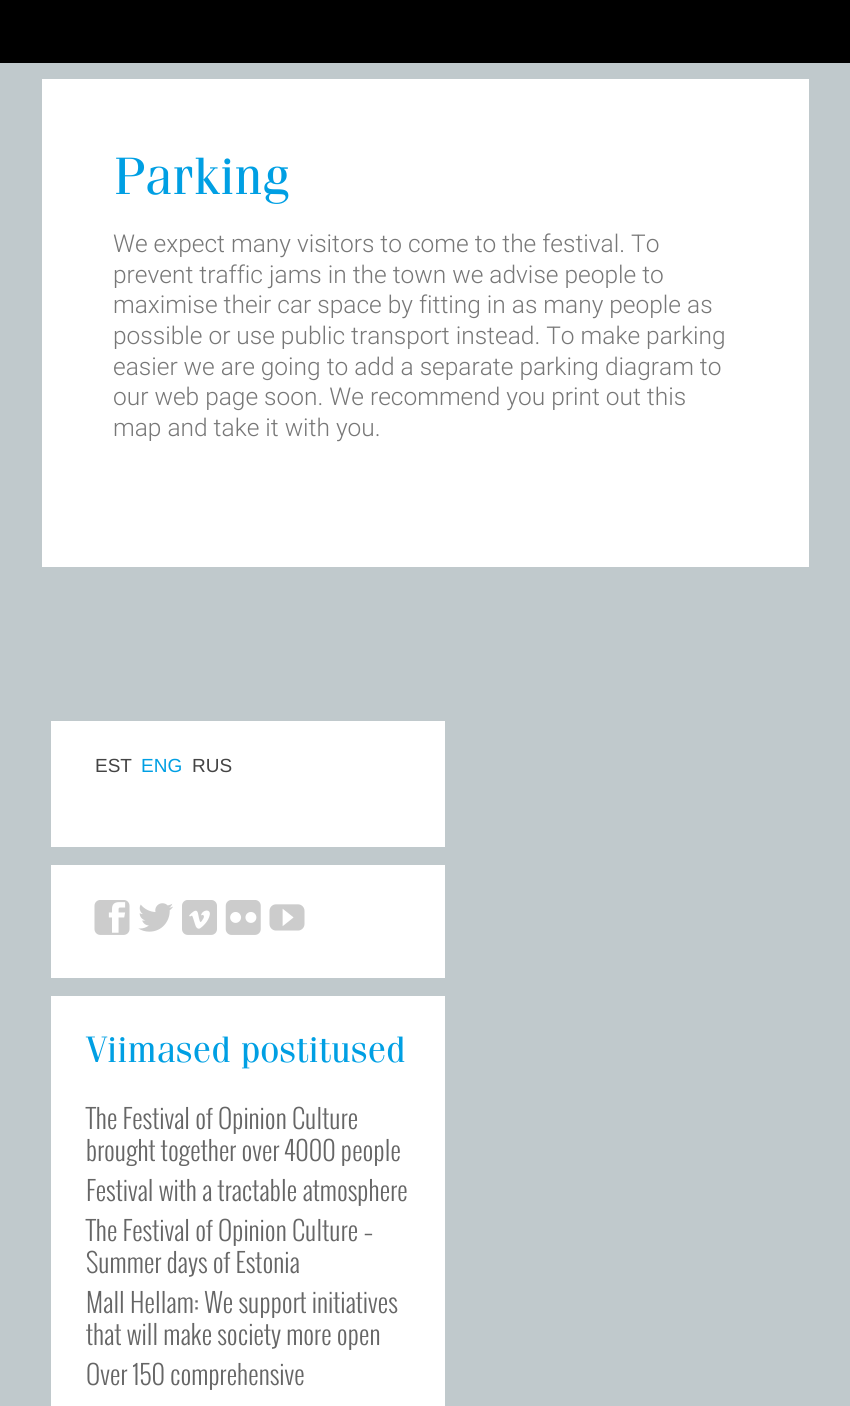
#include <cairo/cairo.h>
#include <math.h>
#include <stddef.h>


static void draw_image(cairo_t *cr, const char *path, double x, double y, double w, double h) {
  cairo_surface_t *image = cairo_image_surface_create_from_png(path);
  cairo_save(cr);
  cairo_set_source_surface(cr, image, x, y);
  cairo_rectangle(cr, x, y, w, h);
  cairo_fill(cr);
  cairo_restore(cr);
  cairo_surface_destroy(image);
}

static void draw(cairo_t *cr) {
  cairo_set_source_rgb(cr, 192 / 255.0, 201 / 255.0, 204 / 255.0);
  cairo_paint(cr);
  cairo_set_source_rgb(cr, 0, 0, 0);
  cairo_rectangle(cr, 0, 0, 850, 63);
  cairo_fill(cr);
  cairo_set_source_rgb(cr, 1, 1, 1);
  cairo_rectangle(cr, 42, 79, 767, 488);
  cairo_fill(cr);
  cairo_rectangle(cr, 51, 721, 394, 126);
  cairo_fill(cr);
  cairo_rectangle(cr, 51, 865, 394, 113);
  cairo_fill(cr);
  draw_image(cr, "images/1.png", 94, 900, 36, 35);
  draw_image(cr, "images/2.png", 138, 903, 35, 29);
  draw_image(cr, "images/3.png", 182, 900, 35, 35);
  draw_image(cr, "images/4.png", 225, 900, 36, 35);
  draw_image(cr, "images/5.png", 269, 904, 36, 27);
  cairo_rectangle(cr, 51, 996, 394, 410);
  cairo_fill(cr);
  cairo_select_font_face(cr, "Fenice", CAIRO_FONT_SLANT_NORMAL, CAIRO_FONT_WEIGHT_NORMAL);
  cairo_set_font_size(cr, 52.5);
  cairo_set_source_rgb(cr, 0, 159 / 255.0, 227 / 255.0);
  cairo_move_to(cr, 113, 194);
  cairo_show_text(cr, "Parking");
  cairo_select_font_face(cr, "Roboto Light", CAIRO_FONT_SLANT_NORMAL, CAIRO_FONT_WEIGHT_NORMAL);
  cairo_set_font_size(cr, 24.5);
  cairo_set_source_rgb(cr, 119 / 255.0, 119 / 255.0, 119 / 255.0);
  cairo_move_to(cr, 113, 252);
  cairo_show_text(cr, "We expect many visitors to come to the festival. To");
  cairo_move_to(cr, 113, 283);
  cairo_show_text(cr, "prevent traffic jams in the town we advise people to");
  cairo_move_to(cr, 113, 313);
  cairo_show_text(cr, "maximise their car space by fitting in as many people as");
  cairo_move_to(cr, 113, 344);
  cairo_show_text(cr, "possible or use public transport instead. To make parking");
  cairo_move_to(cr, 113, 375);
  cairo_show_text(cr, "easier we are going to add a separate parking diagram to");
  cairo_move_to(cr, 113, 405);
  cairo_show_text(cr, "our web page soon. We recommend you print out this");
  cairo_move_to(cr, 113, 436);
  cairo_show_text(cr, "map and take it with you.");
  cairo_select_font_face(cr, "Liberation Sans", CAIRO_FONT_SLANT_NORMAL, CAIRO_FONT_WEIGHT_NORMAL);
  cairo_set_font_size(cr, 19);
  cairo_set_source_rgb(cr, 68 / 255.0, 68 / 255.0, 68 / 255.0);
  cairo_move_to(cr, 95, 772);
  cairo_show_text(cr, "EST");
  cairo_set_source_rgb(cr, 0, 159 / 255.0, 227 / 255.0);
  cairo_move_to(cr, 141, 772);
  cairo_show_text(cr, "ENG");
  cairo_set_source_rgb(cr, 68 / 255.0, 68 / 255.0, 68 / 255.0);
  cairo_move_to(cr, 192, 772);
  cairo_show_text(cr, "RUS");
  cairo_select_font_face(cr, "Fenice", CAIRO_FONT_SLANT_NORMAL, CAIRO_FONT_WEIGHT_NORMAL);
  cairo_set_font_size(cr, 36.75);
  cairo_set_source_rgb(cr, 0, 159 / 255.0, 227 / 255.0);
  cairo_move_to(cr, 86, 1062);
  cairo_show_text(cr, "Viimased postitused");
  cairo_select_font_face(cr, "Oswald Light", CAIRO_FONT_SLANT_NORMAL, CAIRO_FONT_WEIGHT_NORMAL);
  cairo_set_font_size(cr, 26.25);
  cairo_set_source_rgb(cr, 102 / 255.0, 102 / 255.0, 102 / 255.0);
  cairo_move_to(cr, 86, 1129);
  cairo_show_text(cr, "The Festival of Opinion Culture");
  cairo_move_to(cr, 86, 1161);
  cairo_show_text(cr, "brought together over 4000 people");
  cairo_move_to(cr, 86, 1201);
  cairo_show_text(cr, "Festival with a tractable atmosphere");
  cairo_move_to(cr, 86, 1241);
  cairo_show_text(cr, "The Festival of Opinion Culture –");
  cairo_move_to(cr, 86, 1273);
  cairo_show_text(cr, "Summer days of Estonia");
  cairo_move_to(cr, 86, 1313);
  cairo_show_text(cr, "Mall Hellam: We support initiatives");
  cairo_move_to(cr, 86, 1345);
  cairo_show_text(cr, "that will make society more open");
  cairo_move_to(cr, 86, 1385);
  cairo_show_text(cr, "Over 150 comprehensive");
}

int main(void) {
  cairo_surface_t *surface = cairo_image_surface_create(CAIRO_FORMAT_RGB24, 850, 1406);
  cairo_t *cr = cairo_create(surface);
  cairo_font_options_t *options = cairo_font_options_create();
  cairo_font_options_set_hint_metrics(options, CAIRO_HINT_METRICS_OFF);
  cairo_font_options_set_hint_style(options, CAIRO_HINT_STYLE_NONE);
  cairo_set_font_options(cr, options);
  cairo_set_miter_limit(cr, 4);
  draw(cr);
  cairo_surface_write_to_png(surface, "out.png");
  cairo_font_options_destroy(options);
  cairo_destroy(cr);
  cairo_surface_destroy(surface);
  return 0;
}
